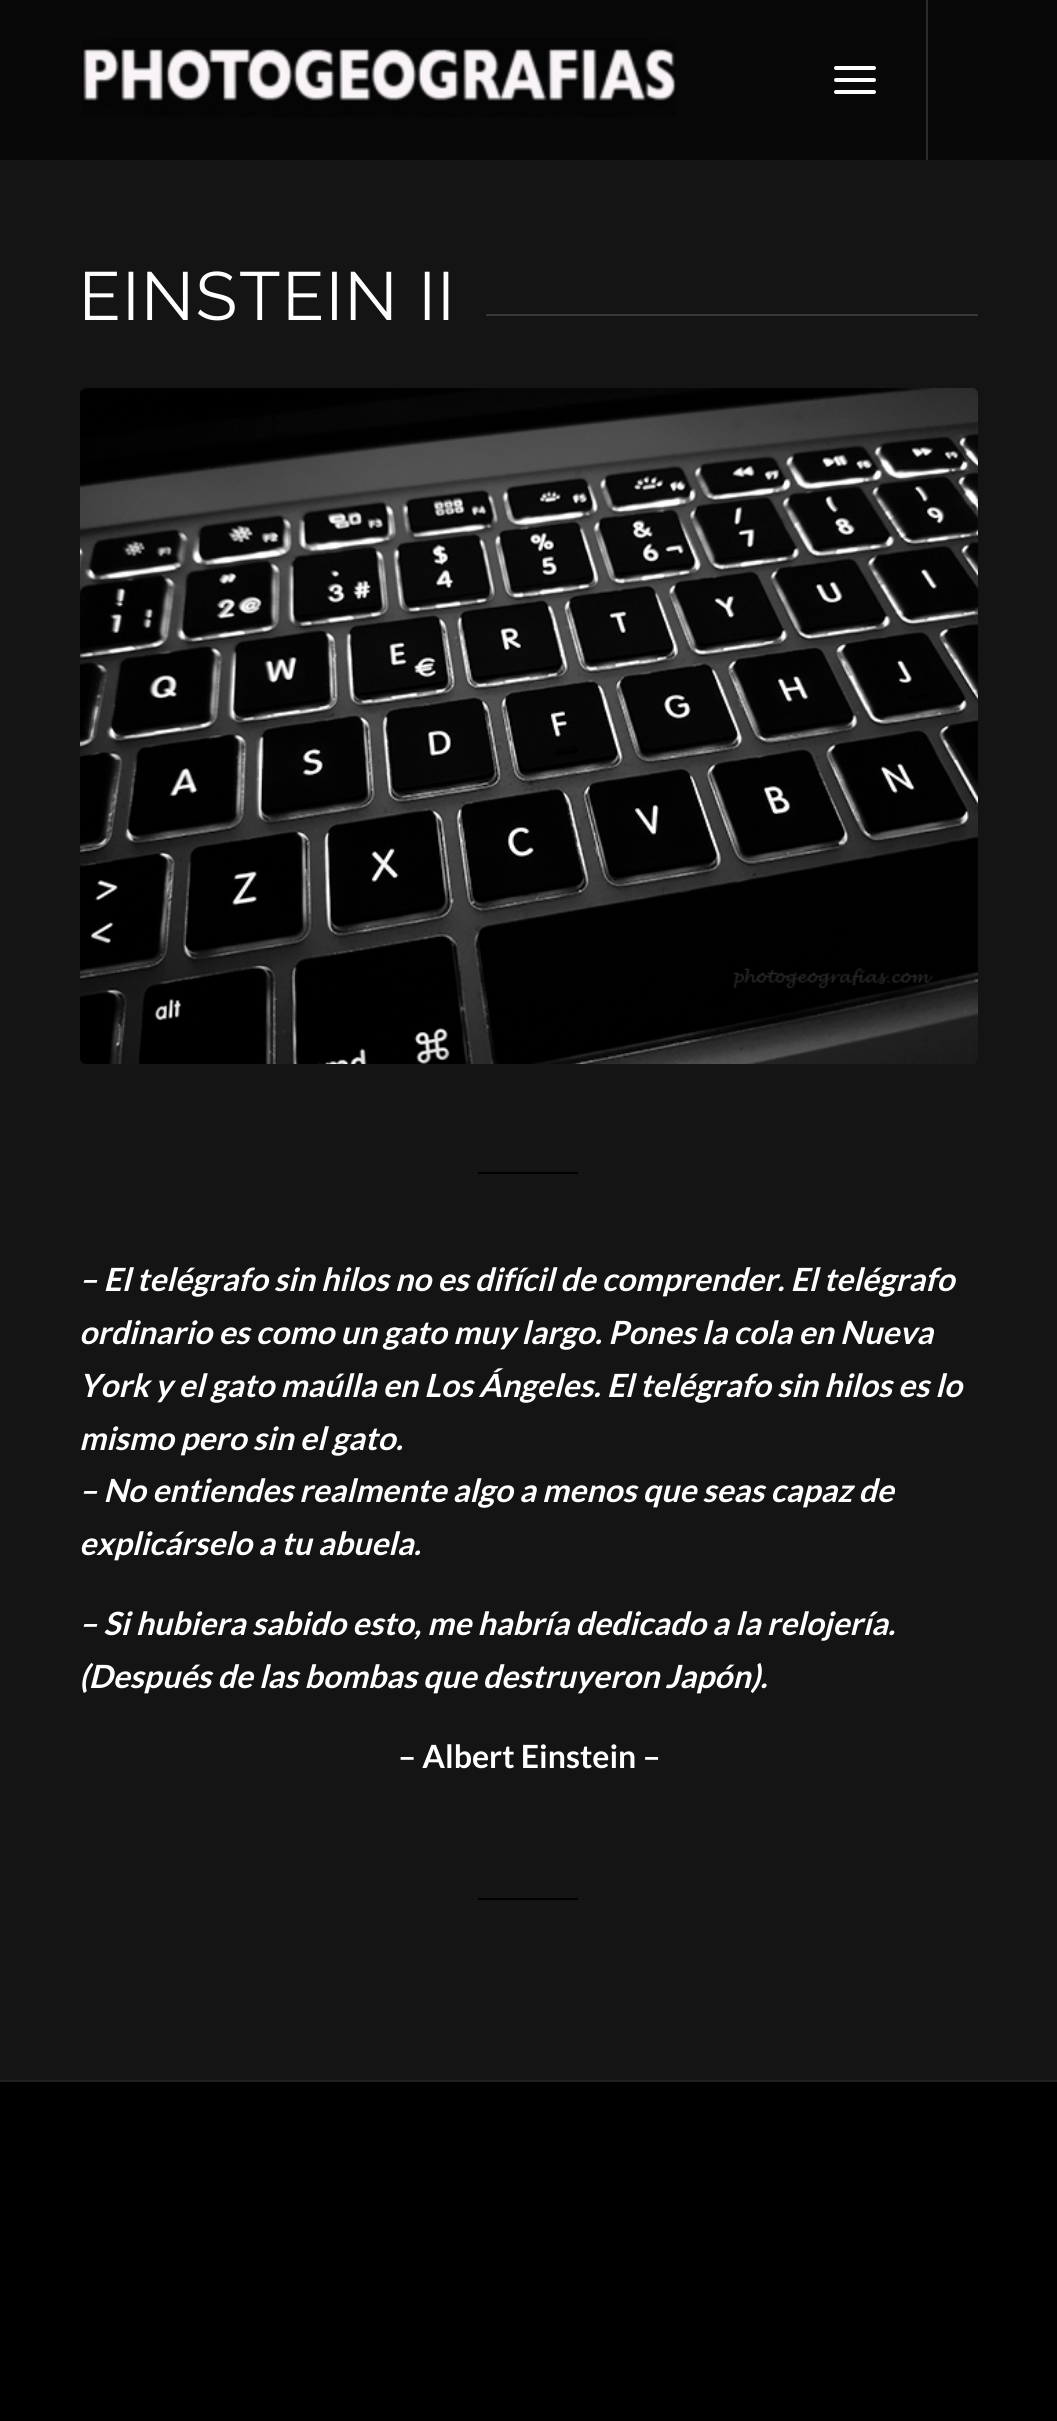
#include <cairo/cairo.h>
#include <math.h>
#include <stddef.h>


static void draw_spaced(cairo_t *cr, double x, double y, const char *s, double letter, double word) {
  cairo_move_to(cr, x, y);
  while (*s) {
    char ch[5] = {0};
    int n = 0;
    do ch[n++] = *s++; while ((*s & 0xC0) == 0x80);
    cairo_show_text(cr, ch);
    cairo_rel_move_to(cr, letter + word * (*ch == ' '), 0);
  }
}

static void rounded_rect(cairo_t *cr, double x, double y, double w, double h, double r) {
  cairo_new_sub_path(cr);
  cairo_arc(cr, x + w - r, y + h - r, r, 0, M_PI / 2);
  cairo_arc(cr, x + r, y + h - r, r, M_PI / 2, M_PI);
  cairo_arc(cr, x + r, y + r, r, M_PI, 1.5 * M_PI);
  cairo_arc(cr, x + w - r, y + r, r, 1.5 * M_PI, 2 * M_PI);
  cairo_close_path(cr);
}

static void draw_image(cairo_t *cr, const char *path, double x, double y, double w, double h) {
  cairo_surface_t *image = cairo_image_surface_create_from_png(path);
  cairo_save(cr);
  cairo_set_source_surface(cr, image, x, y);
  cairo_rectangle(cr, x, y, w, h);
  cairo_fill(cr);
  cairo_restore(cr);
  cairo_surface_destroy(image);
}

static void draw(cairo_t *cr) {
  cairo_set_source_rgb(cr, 0, 0, 0);
  cairo_paint(cr);
  cairo_set_source_rgb(cr, 8 / 255.0, 8 / 255.0, 8 / 255.0);
  cairo_rectangle(cr, 0, 0, 1057, 160);
  cairo_fill(cr);
  draw_image(cr, "images/1.png", 82, 38, 594, 79);
  cairo_set_source_rgb(cr, 43 / 255.0, 43 / 255.0, 43 / 255.0);
  cairo_rectangle(cr, 926, 0, 2, 160);
  cairo_fill(cr);
  cairo_set_source_rgb(cr, 1, 1, 1);
  rounded_rect(cr, 834, 78, 42, 4, 2);
  cairo_fill(cr);
  rounded_rect(cr, 834, 66, 42, 4, 2);
  cairo_fill(cr);
  rounded_rect(cr, 834, 90, 42, 4, 2);
  cairo_fill(cr);
  cairo_set_source_rgb(cr, 20 / 255.0, 20 / 255.0, 20 / 255.0);
  cairo_rectangle(cr, 0, 160, 1057, 1920);
  cairo_fill(cr);
  cairo_set_source_rgb(cr, 55 / 255.0, 55 / 255.0, 55 / 255.0);
  cairo_rectangle(cr, 486, 314, 492, 2);
  cairo_fill(cr);
  draw_image(cr, "images/2.png", 80, 388, 898, 676);
  cairo_set_source_rgb(cr, 0, 0, 0);
  cairo_rectangle(cr, 478, 1172, 100, 2);
  cairo_fill(cr);
  cairo_rectangle(cr, 478, 1898, 100, 2);
  cairo_fill(cr);
  cairo_set_source_rgb(cr, 34 / 255.0, 34 / 255.0, 34 / 255.0);
  cairo_rectangle(cr, 0, 2080, 1057, 2);
  cairo_fill(cr);
  cairo_select_font_face(cr, "Raleway Thin", CAIRO_FONT_SLANT_NORMAL, CAIRO_FONT_WEIGHT_NORMAL);
  cairo_set_font_size(cr, 68);
  cairo_set_source_rgb(cr, 1, 1, 1);
  draw_spaced(cr, 79, 320, "EINSTEIN II", 2, 0);
  cairo_select_font_face(cr, "Lato", CAIRO_FONT_SLANT_ITALIC, CAIRO_FONT_WEIGHT_BOLD);
  cairo_set_font_size(cr, 32);
  cairo_move_to(cr, 79, 1291);
  cairo_show_text(cr, "– El telégrafo sin hilos no es difícil de comprender. El telégrafo");
  cairo_move_to(cr, 79, 1344);
  cairo_show_text(cr, "ordinario es como un gato muy largo. Pones la cola en Nueva");
  cairo_move_to(cr, 79, 1397);
  cairo_show_text(cr, "York y el gato maúlla en Los Ángeles. El telégrafo sin hilos es lo");
  cairo_move_to(cr, 79, 1450);
  cairo_show_text(cr, "mismo pero sin el gato.");
  cairo_move_to(cr, 79, 1502);
  cairo_show_text(cr, "– No entiendes realmente algo a menos que seas capaz de");
  cairo_move_to(cr, 79, 1555);
  cairo_show_text(cr, "explicárselo a tu abuela.");
  cairo_move_to(cr, 79, 1635);
  cairo_show_text(cr, "– Si hubiera sabido esto, me habría dedicado a la relojería.");
  cairo_move_to(cr, 79, 1688);
  cairo_show_text(cr, "(Después de las bombas que destruyeron Japón).");
  cairo_select_font_face(cr, "Lato", CAIRO_FONT_SLANT_NORMAL, CAIRO_FONT_WEIGHT_BOLD);
  cairo_move_to(cr, 398, 1768);
  cairo_show_text(cr, "– Albert Einstein –");
}

int main(void) {
  cairo_surface_t *surface = cairo_image_surface_create(CAIRO_FORMAT_RGB24, 1057, 2421);
  cairo_t *cr = cairo_create(surface);
  cairo_font_options_t *options = cairo_font_options_create();
  cairo_font_options_set_hint_metrics(options, CAIRO_HINT_METRICS_OFF);
  cairo_font_options_set_hint_style(options, CAIRO_HINT_STYLE_NONE);
  cairo_set_font_options(cr, options);
  cairo_set_miter_limit(cr, 4);
  draw(cr);
  cairo_surface_write_to_png(surface, "out.png");
  cairo_font_options_destroy(options);
  cairo_destroy(cr);
  cairo_surface_destroy(surface);
  return 0;
}
